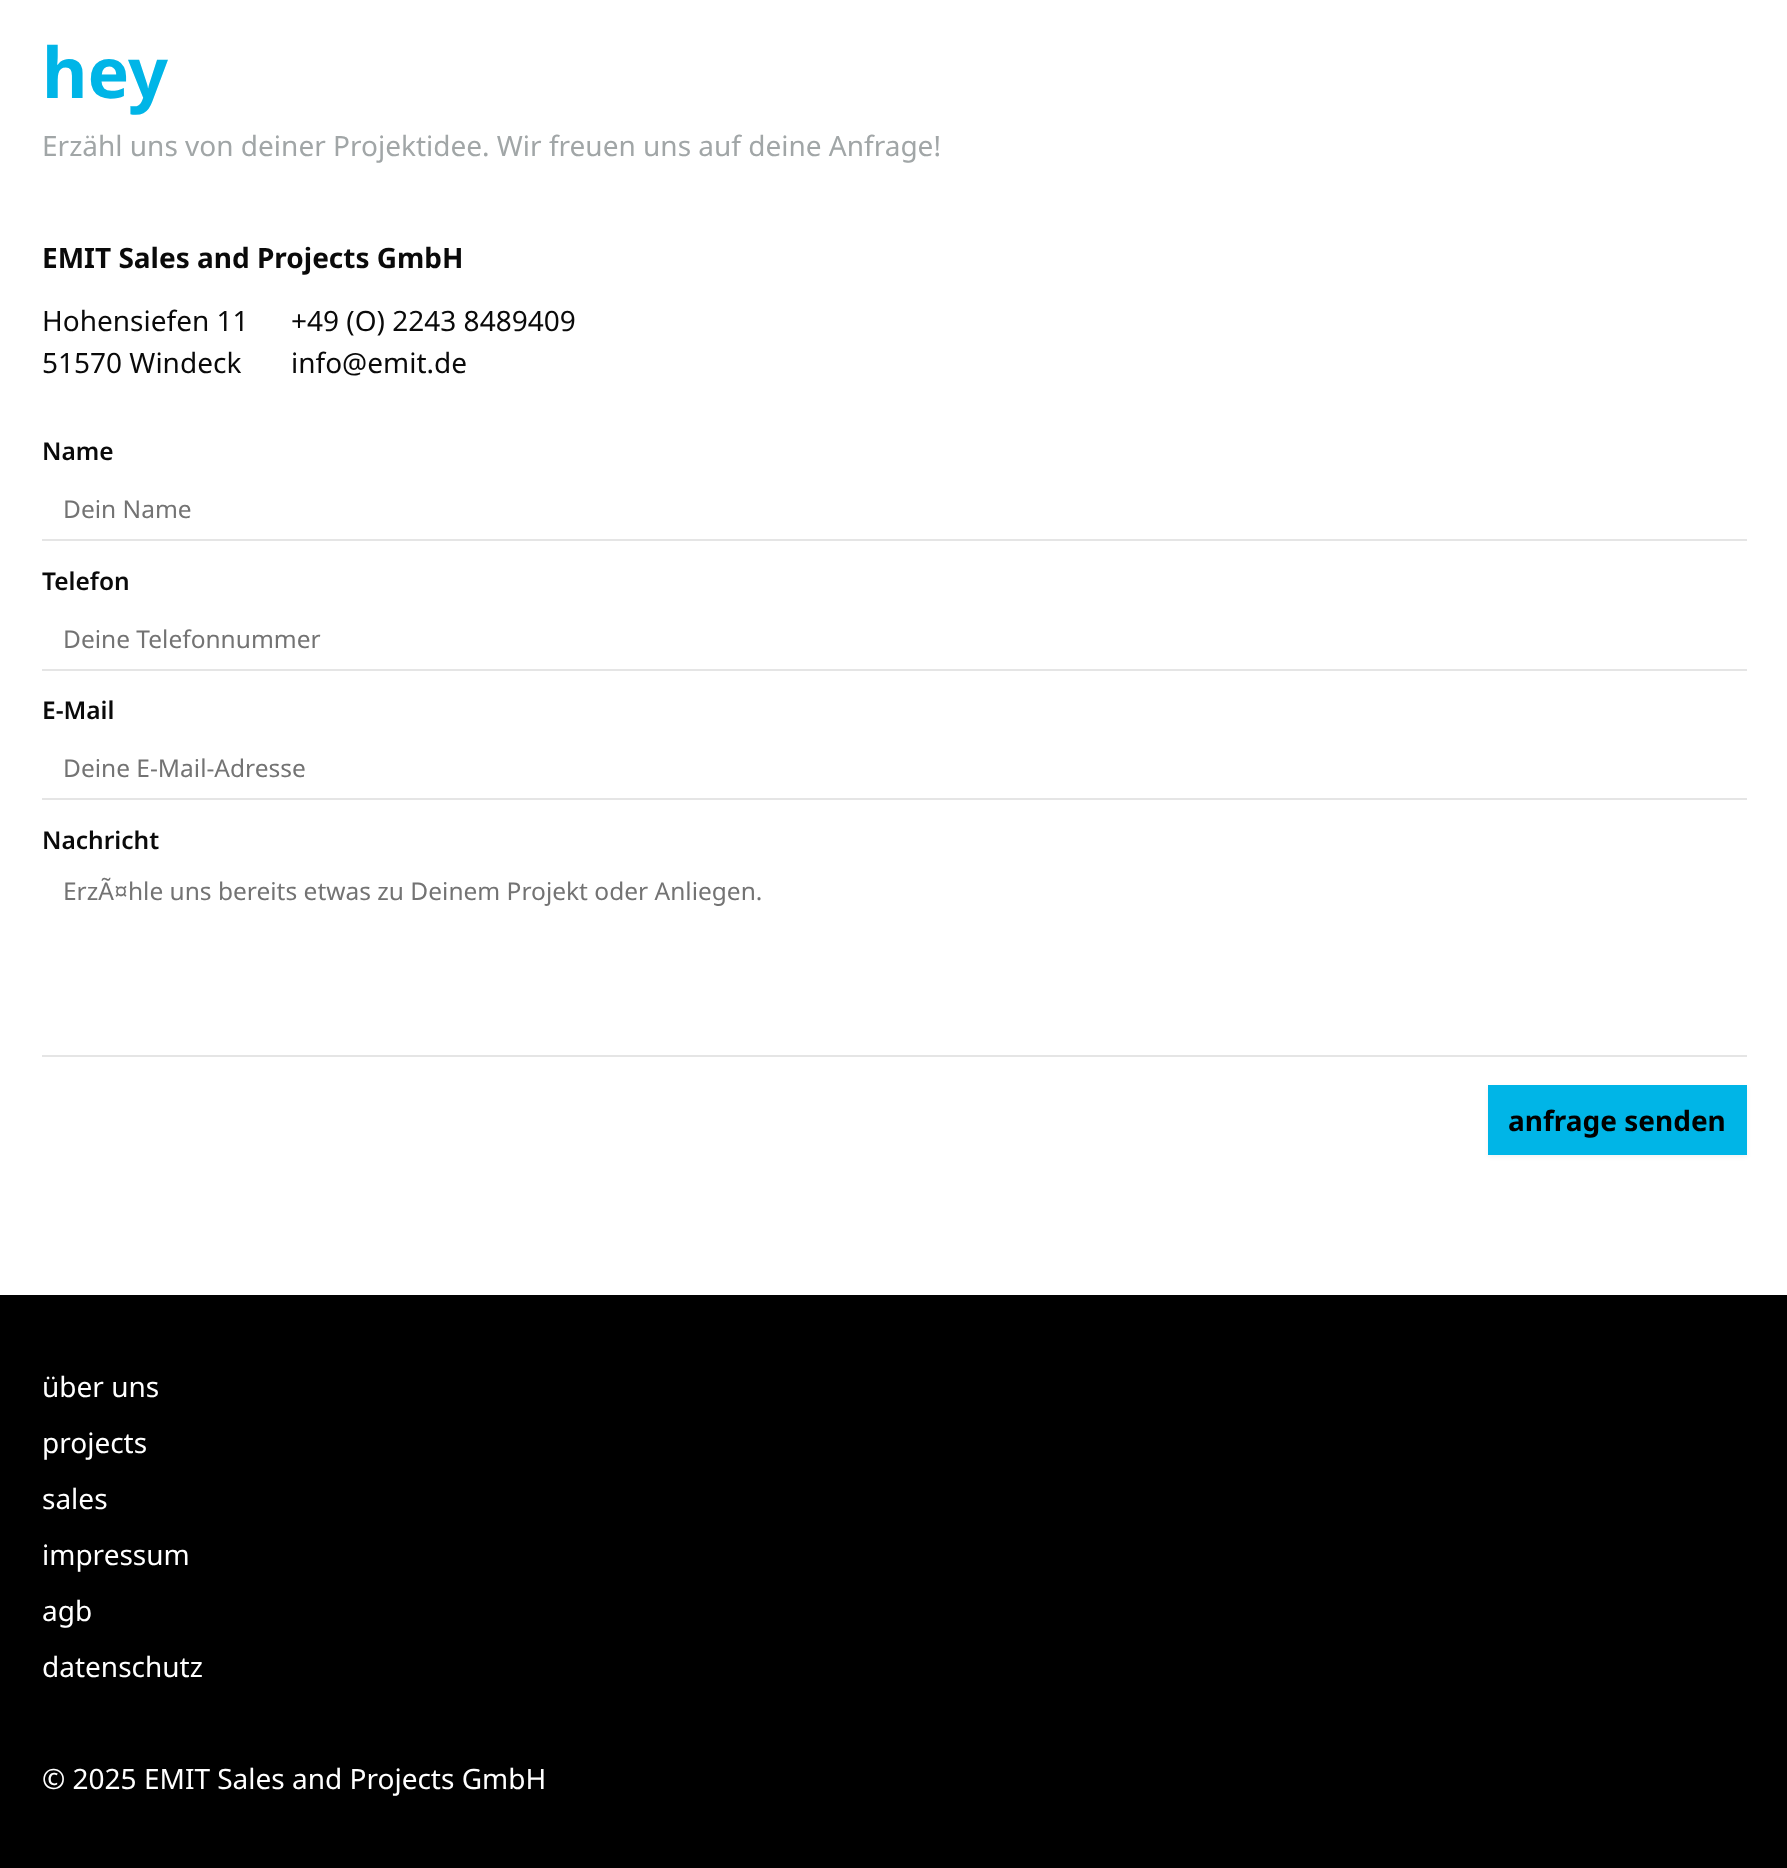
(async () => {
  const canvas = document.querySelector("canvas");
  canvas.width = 1787;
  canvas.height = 1868;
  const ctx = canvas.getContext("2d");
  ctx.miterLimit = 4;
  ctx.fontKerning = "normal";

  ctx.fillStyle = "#ffffff";
  ctx.fillRect(0, 0, 1787, 1868);
  for (const [x, y, w, h, color] of [
    [42, 539, 1705, 2, "#e5e5e5"],
    [42, 669, 1705, 2, "#e5e5e5"],
    [42, 798, 1705, 2, "#e5e5e5"],
    [42, 1055, 1705, 2, "#e5e5e5"],
  ]) {
    ctx.fillStyle = color;
    ctx.fillRect(x, y, w, h);
  }
  ctx.fillStyle = "rgba(0, 0, 0, 0.05)";
  ctx.filter = "blur(2px)";
  ctx.beginPath();
  ctx.rect(1488, 1087, 259, 70);
  ctx.fill();
  ctx.filter = "none";
  ctx.fillStyle = "#00b5e7";
  ctx.fillRect(1488, 1085, 259, 70);
  ctx.fillStyle = "#000000";
  ctx.fillRect(0, 1295, 1787, 573);
  ctx.font = "bold 70px Noto Sans";
  ctx.fillStyle = "#00b5e7";
  ctx.fillText("hey", 42, 98);
  ctx.font = "28px Noto Sans";
  ctx.fillStyle = "#a1a6a7";
  ctx.fillText("Erzähl uns von deiner Projektidee. Wir freuen uns auf deine Anfrage!", 42, 156);
  ctx.font = "bold 28px Noto Sans";
  ctx.fillStyle = "#0a0a0a";
  ctx.fillText("EMIT Sales and Projects GmbH", 42, 268);
  ctx.font = "28px Noto Sans";
  for (const [text, x, y] of [
    ["Hohensiefen 11", 42, 331],
    ["51570 Windeck", 42, 373],
    ["+49 (O) 2243 8489409", 291, 331],
    ["info@emit.de", 291, 373],
  ]) {
    ctx.fillText(text, x, y);
  }
  ctx.font = "600 24.5px Noto Sans";
  ctx.fillText("Name", 42, 460);
  ctx.font = "24.5px Noto Sans";
  ctx.fillStyle = "#737373";
  ctx.fillText("Dein Name", 63, 518);
  ctx.font = "600 24.5px Noto Sans";
  ctx.fillStyle = "#0a0a0a";
  ctx.fillText("Telefon", 42, 590);
  ctx.font = "24.5px Noto Sans";
  ctx.fillStyle = "#737373";
  ctx.fillText("Deine Telefonnummer", 63, 648);
  ctx.font = "600 24.5px Noto Sans";
  ctx.fillStyle = "#0a0a0a";
  ctx.fillText("E-Mail", 42, 719);
  ctx.font = "24.5px Noto Sans";
  ctx.fillStyle = "#737373";
  ctx.fillText("Deine E-Mail-Adresse", 63, 777);
  ctx.font = "600 24.5px Noto Sans";
  ctx.fillStyle = "#0a0a0a";
  ctx.fillText("Nachricht", 42, 849);
  ctx.font = "24.5px Noto Sans";
  ctx.fillStyle = "#737373";
  ctx.fillText("ErzÃ¤hle uns bereits etwas zu Deinem Projekt oder Anliegen.", 63, 900);
  ctx.font = "bold 28px Noto Sans";
  ctx.fillStyle = "#000000";
  ctx.fillText("anfrage senden", 1508, 1131);
  ctx.font = "28px Noto Sans";
  ctx.fillStyle = "#ffffff";
  for (const [text, x, y] of [
    ["über uns", 42, 1397],
    ["projects", 42, 1453],
    ["sales", 42, 1509],
    ["impressum", 42, 1565],
    ["agb", 42, 1621],
    ["datenschutz", 42, 1677],
    ["© 2025 EMIT Sales and Projects GmbH", 42, 1789],
  ]) {
    ctx.fillText(text, x, y);
  }
})();
